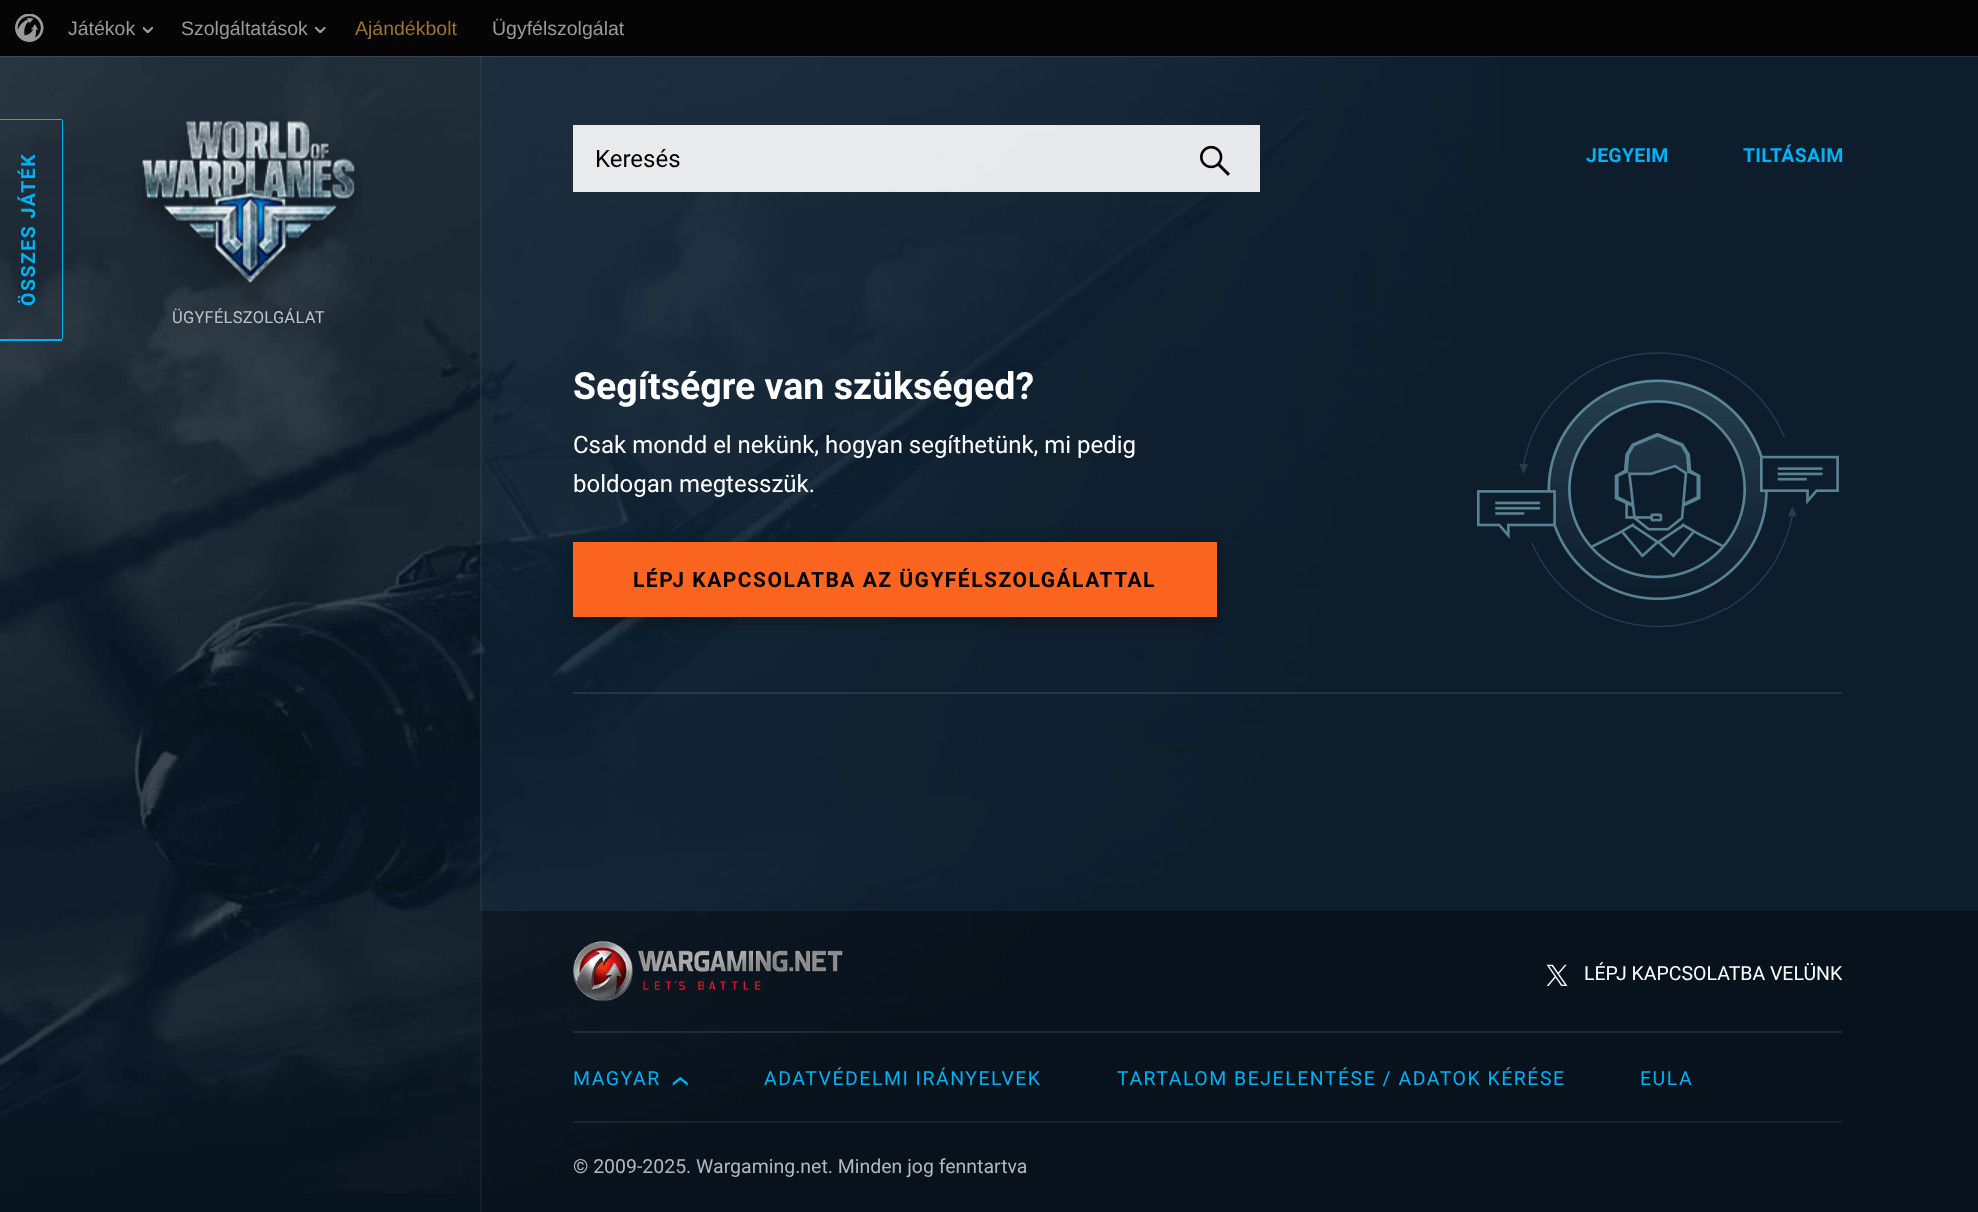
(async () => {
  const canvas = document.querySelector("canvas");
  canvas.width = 1978;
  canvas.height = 1212;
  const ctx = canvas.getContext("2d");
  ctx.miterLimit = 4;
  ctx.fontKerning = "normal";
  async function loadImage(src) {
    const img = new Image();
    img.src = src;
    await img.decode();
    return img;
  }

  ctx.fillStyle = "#0b1925";
  ctx.fillRect(0, 0, 1978, 1212);
  ctx.drawImage(await loadImage("img/1.png"), 0, 56, 1499, 1137);
  for (const [x, y, w, h, color] of [
    [0, 56, 480, 1156, "rgba(0, 0, 0, 0.2)"],
    [480, 56, 1498, 1156, "rgba(15, 34, 51, 0.5)"],
    [480, 911, 1498, 301, "rgba(0, 0, 0, 0.35)"],
    [480, 56, 2, 1156, "rgba(255, 255, 255, 0.05)"],
  ]) {
    ctx.fillStyle = color;
    ctx.fillRect(x, y, w, h);
  }
  ctx.strokeStyle = "rgba(255, 255, 255, 0.1)";
  ctx.lineWidth = 2;
  ctx.strokeRect(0, 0, 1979, 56);
  ctx.fillStyle = "#050505";
  ctx.fillRect(0, 0, 1978, 56);
  ctx.drawImage(await loadImage("img/2.png"), 15, 14, 29, 28);
  ctx.drawImage(await loadImage("img/3.png"), 143, 27, 10, 6);
  ctx.drawImage(await loadImage("img/4.png"), 315, 27, 11, 6);
  for (const [x, y, w, h, color] of [
    [0, 119, 62, 1, "#00b1f3"],
    [62, 120, 1, 219, "#00b1f3"],
    [0, 339, 62, 2, "#00b1f3"],
  ]) {
    ctx.fillStyle = color;
    ctx.fillRect(x, y, w, h);
  }
  ctx.drawImage(await loadImage("img/5.png"), 135, 120, 227, 182);
  ctx.fillStyle = "rgba(255, 255, 255, 0.9)";
  ctx.fillRect(573, 125, 687, 67);
  ctx.drawImage(await loadImage("img/6.png"), 1200, 145, 30, 31);
  ctx.fillStyle = "rgba(255, 255, 255, 0.1)";
  ctx.fillRect(573, 692, 1269, 2);
  ctx.fillStyle = "rgba(0, 0, 0, 0.2)";
  ctx.filter = "blur(8px)";
  ctx.beginPath();
  ctx.rect(572, 545, 646, 78);
  ctx.fill();
  ctx.filter = "none";
  ctx.fillStyle = "#fc6520";
  ctx.fillRect(573, 542, 644, 75);
  ctx.drawImage(await loadImage("img/7.png"), 1476, 352, 363, 276);
  ctx.drawImage(await loadImage("img/8.png"), 573, 941, 270, 60);
  ctx.drawImage(await loadImage("img/9.png"), 1546, 964, 22, 22);
  ctx.fillStyle = "rgba(255, 255, 255, 0.1)";
  ctx.fillRect(573, 1031, 1269, 2);
  ctx.drawImage(await loadImage("img/10.png"), 672, 1076, 16, 10);
  ctx.fillStyle = "#1a242c";
  ctx.fillRect(573, 1121, 1269, 2);
  ctx.font = "19.5px Liberation Sans";
  ctx.fillStyle = "#9b9b9b";
  ctx.fillText("Játékok", 68, 35);
  ctx.fillText("Szolgáltatások", 181, 35);
  ctx.fillStyle = "#9b7430";
  ctx.fillText("Ajándékbolt", 355, 35);
  ctx.fillStyle = "#9b9b9b";
  ctx.fillText("Ügyfélszolgálat", 492, 35);
  ctx.letterSpacing = "1.5px";
  ctx.font = "bold 19.5px Roboto";
  ctx.fillStyle = "#00b1f3";
  ctx.save();
  ctx.translate(35, 306);
  ctx.rotate(-90 * Math.PI / 180);
  ctx.fillText("ÖSSZES JÁTÉK", 0, 0);
  ctx.restore();
  ctx.letterSpacing = "0.25px";
  ctx.font = "16.5px Roboto";
  ctx.fillStyle = "#bec2c5";
  ctx.fillText("ÜGYFÉLSZOLGÁLAT", 172, 323);
  ctx.letterSpacing = "0px";
  ctx.font = "24px Roboto";
  ctx.fillStyle = "#000000";
  ctx.fillText("Keresés", 595, 167);
  ctx.letterSpacing = "0.25px";
  ctx.font = "bold 19.5px Roboto";
  ctx.fillStyle = "#00b1f3";
  ctx.fillText("JEGYEIM", 1586, 162);
  ctx.fillText("TILTÁSAIM", 1743, 162);
  ctx.letterSpacing = "0px";
  ctx.font = "bold 37.5px Roboto";
  ctx.fillStyle = "#ffffff";
  ctx.fillText("Segítségre van szükséged?", 573, 399);
  ctx.font = "24px Roboto";
  ctx.fillText("Csak mondd el nekünk, hogyan segíthetünk, mi pedig", 573, 453);
  ctx.fillText("boldogan megtesszük.", 573, 492);
  ctx.letterSpacing = "1.5px";
  ctx.font = "bold 21px Roboto";
  ctx.fillStyle = "#000000";
  ctx.fillText("LÉPJ KAPCSOLATBA AZ ÜGYFÉLSZOLGÁLATTAL", 633, 587);
  ctx.letterSpacing = "0px";
  ctx.font = "19.5px Roboto";
  ctx.fillStyle = "#ffffff";
  ctx.fillText("LÉPJ KAPCSOLATBA VELÜNK", 1584, 980);
  ctx.letterSpacing = "1.5px";
  ctx.fillStyle = "#00b1f3";
  for (const [text, x, y] of [
    ["MAGYAR", 573, 1085],
    ["ADATVÉDELMI IRÁNYELVEK", 764, 1085],
    ["TARTALOM BEJELENTÉSE / ADATOK KÉRÉSE", 1117, 1085],
    ["EULA", 1640, 1085],
  ]) {
    ctx.fillText(text, x, y);
  }
  ctx.letterSpacing = "0px";
  ctx.fillStyle = "#b5b8bb";
  ctx.fillText("© 2009-2025. Wargaming.net. Minden jog fenntartva", 573, 1173);
})();
